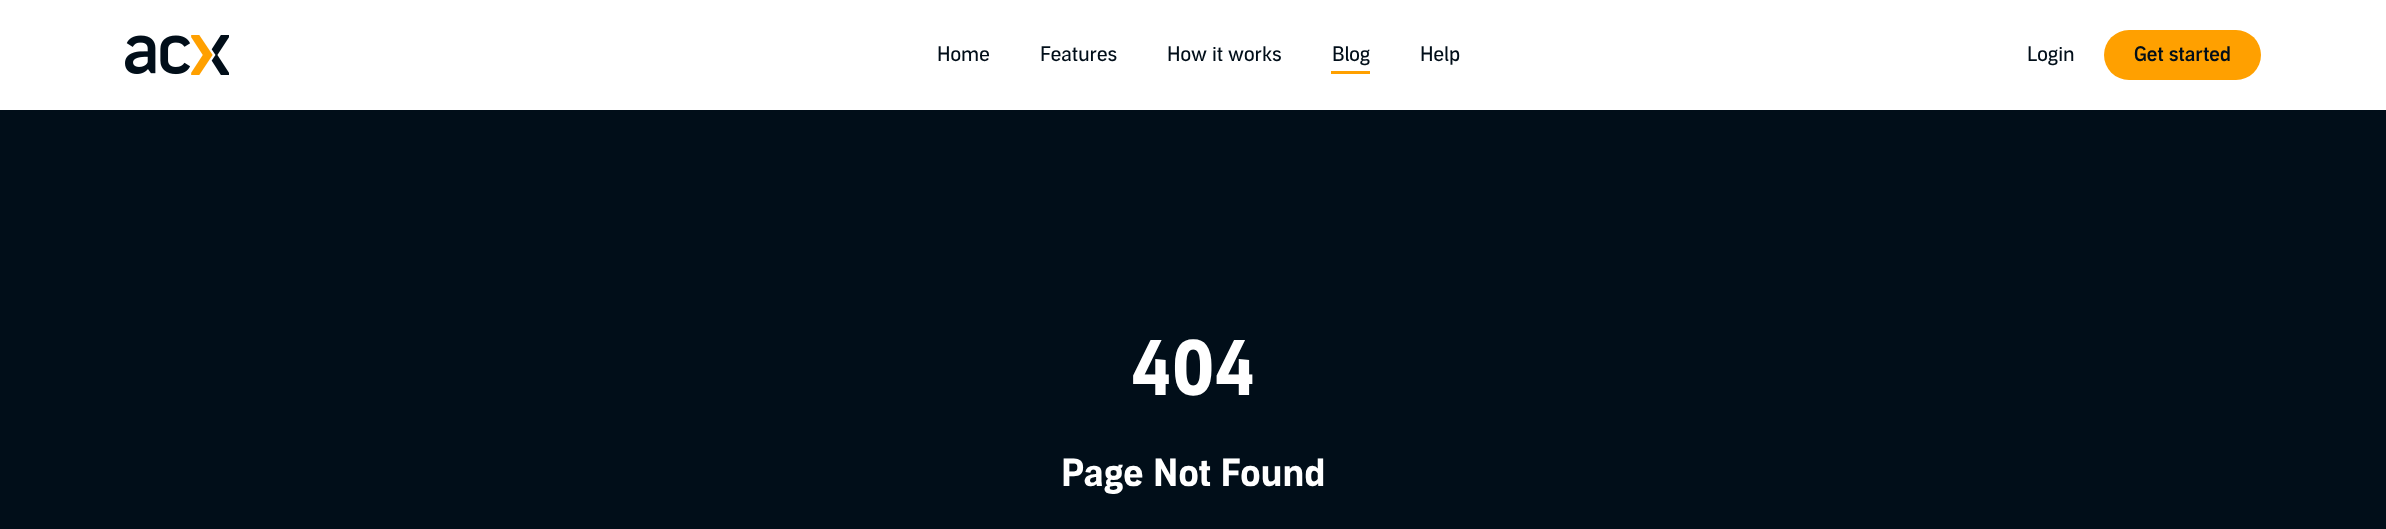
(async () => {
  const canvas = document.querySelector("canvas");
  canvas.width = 2386;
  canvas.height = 529;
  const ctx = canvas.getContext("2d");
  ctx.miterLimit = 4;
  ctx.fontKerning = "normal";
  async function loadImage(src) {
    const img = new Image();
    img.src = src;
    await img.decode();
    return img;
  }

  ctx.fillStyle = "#010e19";
  ctx.fillRect(0, 0, 2386, 529);
  ctx.fillStyle = "#ffffff";
  ctx.fillRect(0, 0, 2386, 110);
  ctx.drawImage(await loadImage("img/1.png"), 125, 35, 104, 40);
  ctx.fillStyle = "#ffa000";
  ctx.fillRect(1331, 71, 39, 3);
  ctx.beginPath();
  ctx.roundRect(2104, 30, 157, 50, 25);
  ctx.fill();
  ctx.font = "20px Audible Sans";
  ctx.fillStyle = "#010e19";
  for (const [text, x, y] of [
    ["Home", 937, 61],
    ["Features", 1040, 61],
    ["How it works", 1167, 61],
    ["Blog", 1332, 61],
    ["Help", 1420, 61],
    ["Login", 2027, 61],
  ]) {
    ctx.fillText(text, x, y);
  }
  ctx.font = "500 20px Audible Sans";
  ctx.fillText("Get started", 2134, 61);
  ctx.font = "bold 75px Audible Sans";
  ctx.fillStyle = "#ffffff";
  ctx.fillText("404", 1131, 395);
  ctx.font = "bold 37.5px Audible Sans";
  ctx.fillText("Page Not Found", 1061, 486);
})();
